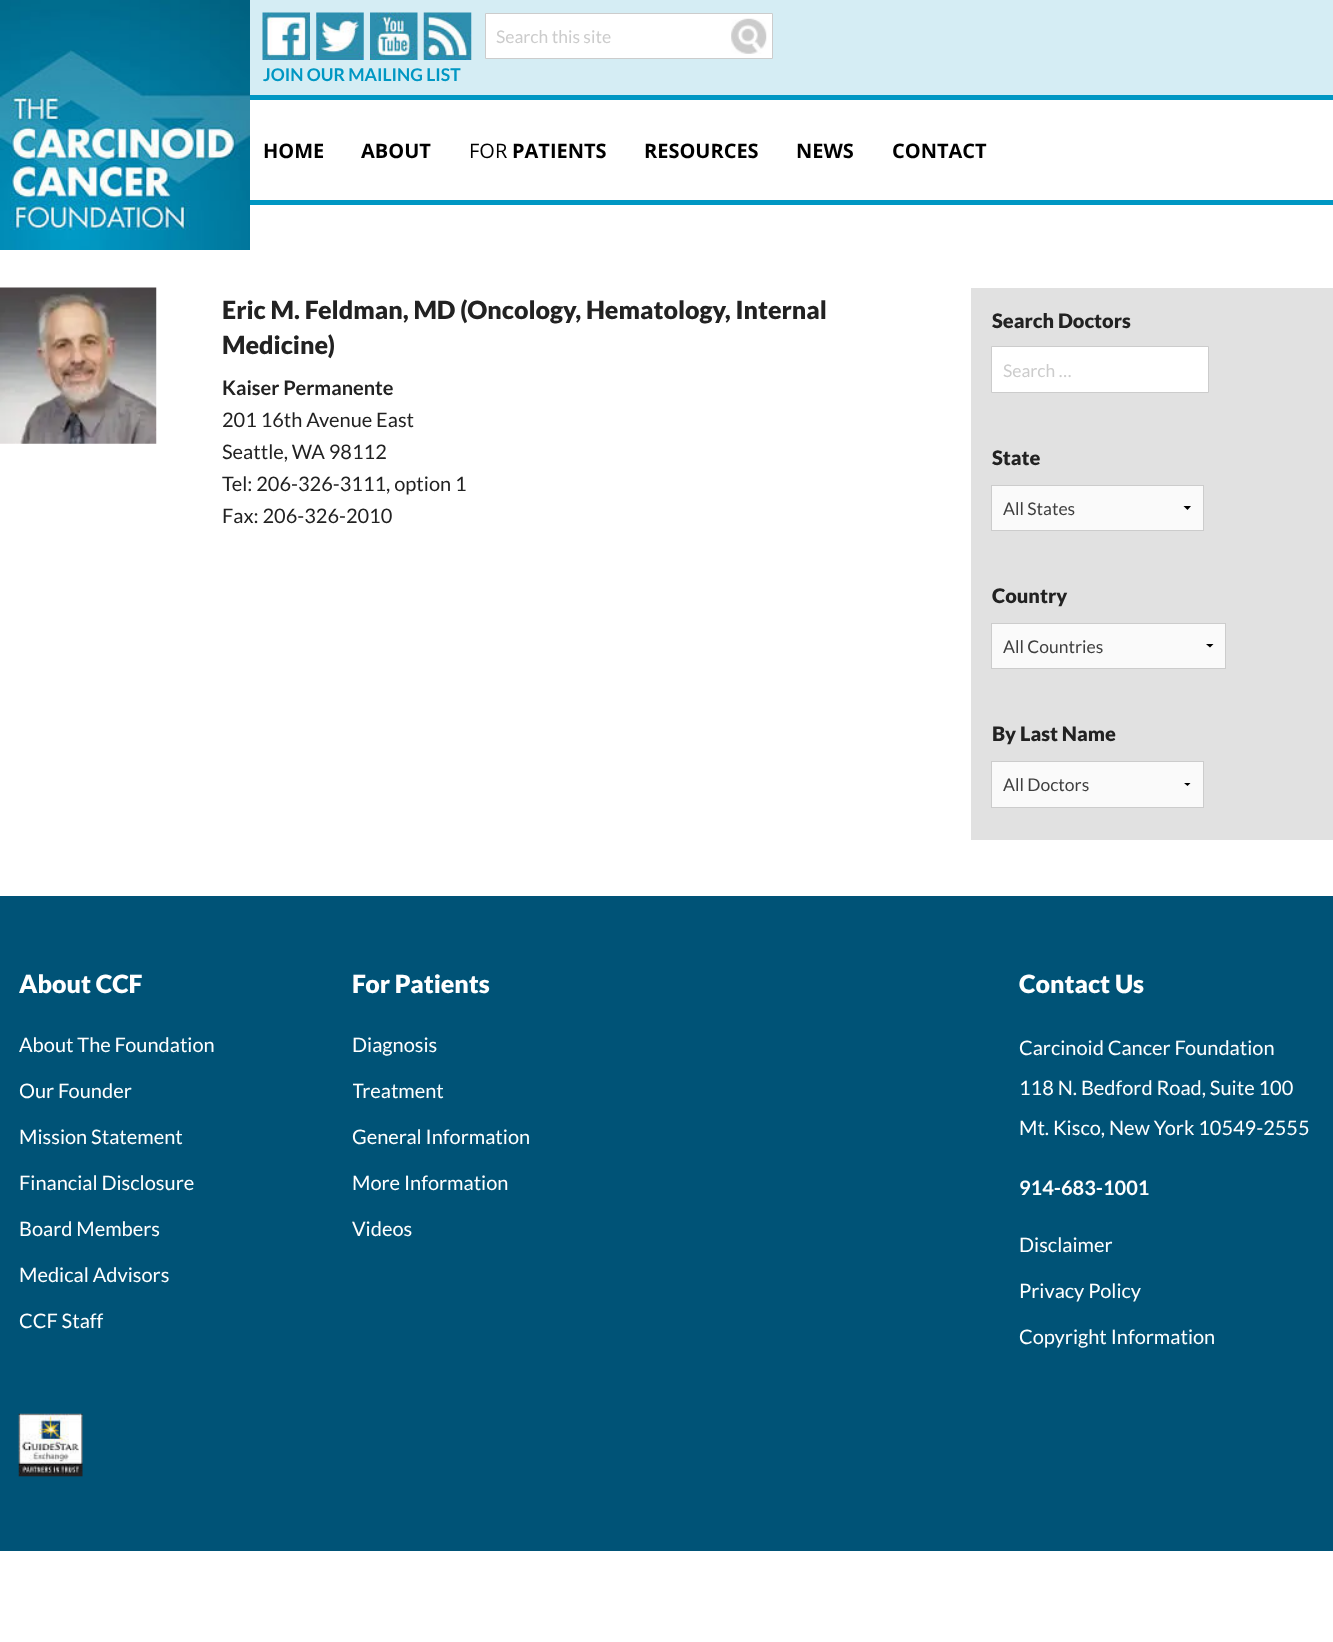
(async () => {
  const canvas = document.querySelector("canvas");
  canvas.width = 1333;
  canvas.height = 1642;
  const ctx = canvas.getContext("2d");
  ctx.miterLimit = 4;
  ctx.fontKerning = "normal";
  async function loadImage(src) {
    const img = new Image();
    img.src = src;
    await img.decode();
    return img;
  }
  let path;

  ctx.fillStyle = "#ffffff";
  ctx.fillRect(0, 0, 1333, 1642);
  ctx.fillStyle = "#d5edf4";
  ctx.fillRect(250, 0, 1083, 95);
  ctx.fillStyle = "#0097c3";
  ctx.fillRect(250, 95, 1083, 5);
  ctx.drawImage(await loadImage("img/1.png"), 0, 0, 250, 250);
  ctx.fillStyle = "#ffffff";
  ctx.beginPath();
  ctx.rect(485.5, 13.5, 287, 45);
  ctx.fill();
  ctx.strokeStyle = "#cccccc";
  ctx.stroke();
  ctx.drawImage(await loadImage("img/2.png"), 731, 18, 36, 36);
  ctx.drawImage(await loadImage("img/3.png"), 262, 12, 48, 48);
  ctx.drawImage(await loadImage("img/4.png"), 316, 12, 48, 48);
  ctx.drawImage(await loadImage("img/5.png"), 370, 12, 48, 48);
  ctx.drawImage(await loadImage("img/6.png"), 423, 12, 49, 48);
  ctx.fillStyle = "#0097c3";
  ctx.fillRect(250, 200, 1083, 5);
  ctx.drawImage(await loadImage("img/7.png"), 0, 287, 157, 157);
  ctx.fillStyle = "#e1e1e1";
  ctx.fillRect(971, 288, 362, 552);
  ctx.fillStyle = "#ffffff";
  ctx.beginPath();
  ctx.rect(991.5, 346.5, 217, 46);
  ctx.fill();
  ctx.stroke();
  ctx.fillStyle = "#fafafa";
  ctx.fillRect(992, 486, 211, 44);
  ctx.fillStyle = "#000000";
  path = new Path2D("M1191 506L1187.5 510L1183.5 506Z");
  ctx.fill(path);
  ctx.strokeRect(991.5, 485.5, 212, 45);
  ctx.fillStyle = "#fafafa";
  ctx.fillRect(992, 624, 233, 44);
  ctx.fillStyle = "#000000";
  path = new Path2D("M1213.5 644L1210 647.5L1206 644Z");
  ctx.fill(path);
  ctx.strokeRect(991.5, 623.5, 234, 45);
  ctx.fillStyle = "#fafafa";
  ctx.fillRect(992, 762, 211, 45);
  ctx.save();
  ctx.beginPath();
  ctx.rect(1173, 783, 30, 4);
  ctx.clip();
  ctx.fillStyle = "#000000";
  path = new Path2D("M1191 782.5L1187.5 786L1183.5 782.5Z");
  ctx.fill(path);
  ctx.restore();
  ctx.strokeRect(991.5, 761.5, 212, 46);
  ctx.fillStyle = "#005377";
  ctx.fillRect(0, 896, 1333, 655);
  ctx.drawImage(await loadImage("img/8.png"), 18, 1413, 65, 64);
  ctx.font = "17.5px Lato";
  ctx.fillStyle = "#cccccc";
  ctx.fillText("Search this site", 496, 43);
  ctx.font = "bold 17.5px Lato";
  ctx.fillStyle = "#0097c3";
  ctx.fillText("JOIN OUR MAILING LIST", 263, 81);
  ctx.font = "bold 20px Open Sans";
  ctx.fillStyle = "#000000";
  ctx.fillText("HOME", 263, 158);
  ctx.fillText("ABOUT", 361, 158);
  ctx.font = "20px Open Sans";
  ctx.fillText("FOR", 469, 158);
  ctx.font = "bold 20px Open Sans";
  for (const [text, x, y] of [
    ["PATIENTS", 512, 158],
    ["RESOURCES", 644, 158],
    ["NEWS", 796, 158],
    ["CONTACT", 892, 158],
  ]) {
    ctx.fillText(text, x, y);
  }
  ctx.font = "900 25px Lato";
  ctx.fillStyle = "#222222";
  ctx.fillText("Eric M. Feldman, MD (Oncology, Hematology, Internal", 222, 319);
  ctx.fillText("Medicine)", 222, 354);
  ctx.font = "bold 20px Lato";
  ctx.fillText("Kaiser Permanente", 222, 395);
  ctx.font = "20px Lato";
  for (const [text, x, y] of [
    ["201 16th Avenue East", 222, 427],
    ["Seattle, WA 98112", 222, 459],
    ["Tel: 206-326-3111, option 1", 222, 491],
    ["Fax: 206-326-2010", 222, 523],
  ]) {
    ctx.fillText(text, x, y);
  }
  ctx.font = "900 20px Lato";
  ctx.fillText("Search Doctors", 992, 328);
  ctx.font = "17.5px Lato";
  ctx.fillStyle = "#cccccc";
  ctx.fillText("Search …", 1003, 377);
  ctx.font = "900 20px Lato";
  ctx.fillStyle = "#222222";
  ctx.fillText("State", 992, 465);
  ctx.font = "17.5px Lato";
  ctx.fillStyle = "#3f3f3f";
  ctx.fillText("All States", 1003, 515);
  ctx.font = "900 20px Lato";
  ctx.fillStyle = "#222222";
  ctx.fillText("Country", 992, 603);
  ctx.font = "17.5px Lato";
  ctx.fillStyle = "#3f3f3f";
  ctx.fillText("All Countries", 1003, 653);
  ctx.font = "900 20px Lato";
  ctx.fillStyle = "#222222";
  ctx.fillText("By Last Name", 992, 741);
  ctx.font = "17.5px Lato";
  ctx.fillStyle = "#3f3f3f";
  ctx.fillText("All Doctors", 1003, 791);
  ctx.font = "900 25px Lato";
  ctx.fillStyle = "#ffffff";
  ctx.fillText("About CCF", 19, 993);
  ctx.font = "20px Lato";
  for (const [text, x, y] of [
    ["About The Foundation", 19, 1052],
    ["Our Founder", 19, 1098],
    ["Mission Statement", 19, 1144],
    ["Financial Disclosure", 19, 1190],
    ["Board Members", 19, 1236],
    ["Medical Advisors", 19, 1282],
    ["CCF Staff", 19, 1328],
  ]) {
    ctx.fillText(text, x, y);
  }
  ctx.font = "900 25px Lato";
  ctx.fillText("For Patients", 352, 993);
  ctx.font = "20px Lato";
  ctx.fillText("Diagnosis", 352, 1052);
  ctx.save();
  ctx.beginPath();
  ctx.rect(353, 1028, 296, 230);
  ctx.clip();
  ctx.fillText("Treatment", 352, 1098);
  ctx.restore();
  for (const [text, x, y] of [
    ["General Information", 352, 1144],
    ["More Information", 352, 1190],
    ["Videos", 352, 1236],
  ]) {
    ctx.fillText(text, x, y);
  }
  ctx.font = "900 25px Lato";
  ctx.fillText("Contact Us", 1019, 993);
  ctx.font = "20px Lato";
  for (const [text, x, y] of [
    ["Carcinoid Cancer Foundation", 1019, 1055],
    ["118 N. Bedford Road, Suite 100", 1019, 1095],
    ["Mt. Kisco, New York 10549-2555", 1019, 1135],
  ]) {
    ctx.fillText(text, x, y);
  }
  ctx.font = "bold 20px Lato";
  ctx.fillText("914-683-1001", 1019, 1195);
  ctx.font = "20px Lato";
  for (const [text, x, y] of [
    ["Disclaimer", 1019, 1252],
    ["Privacy Policy", 1019, 1298],
    ["Copyright Information", 1019, 1344],
  ]) {
    ctx.fillText(text, x, y);
  }
})();
